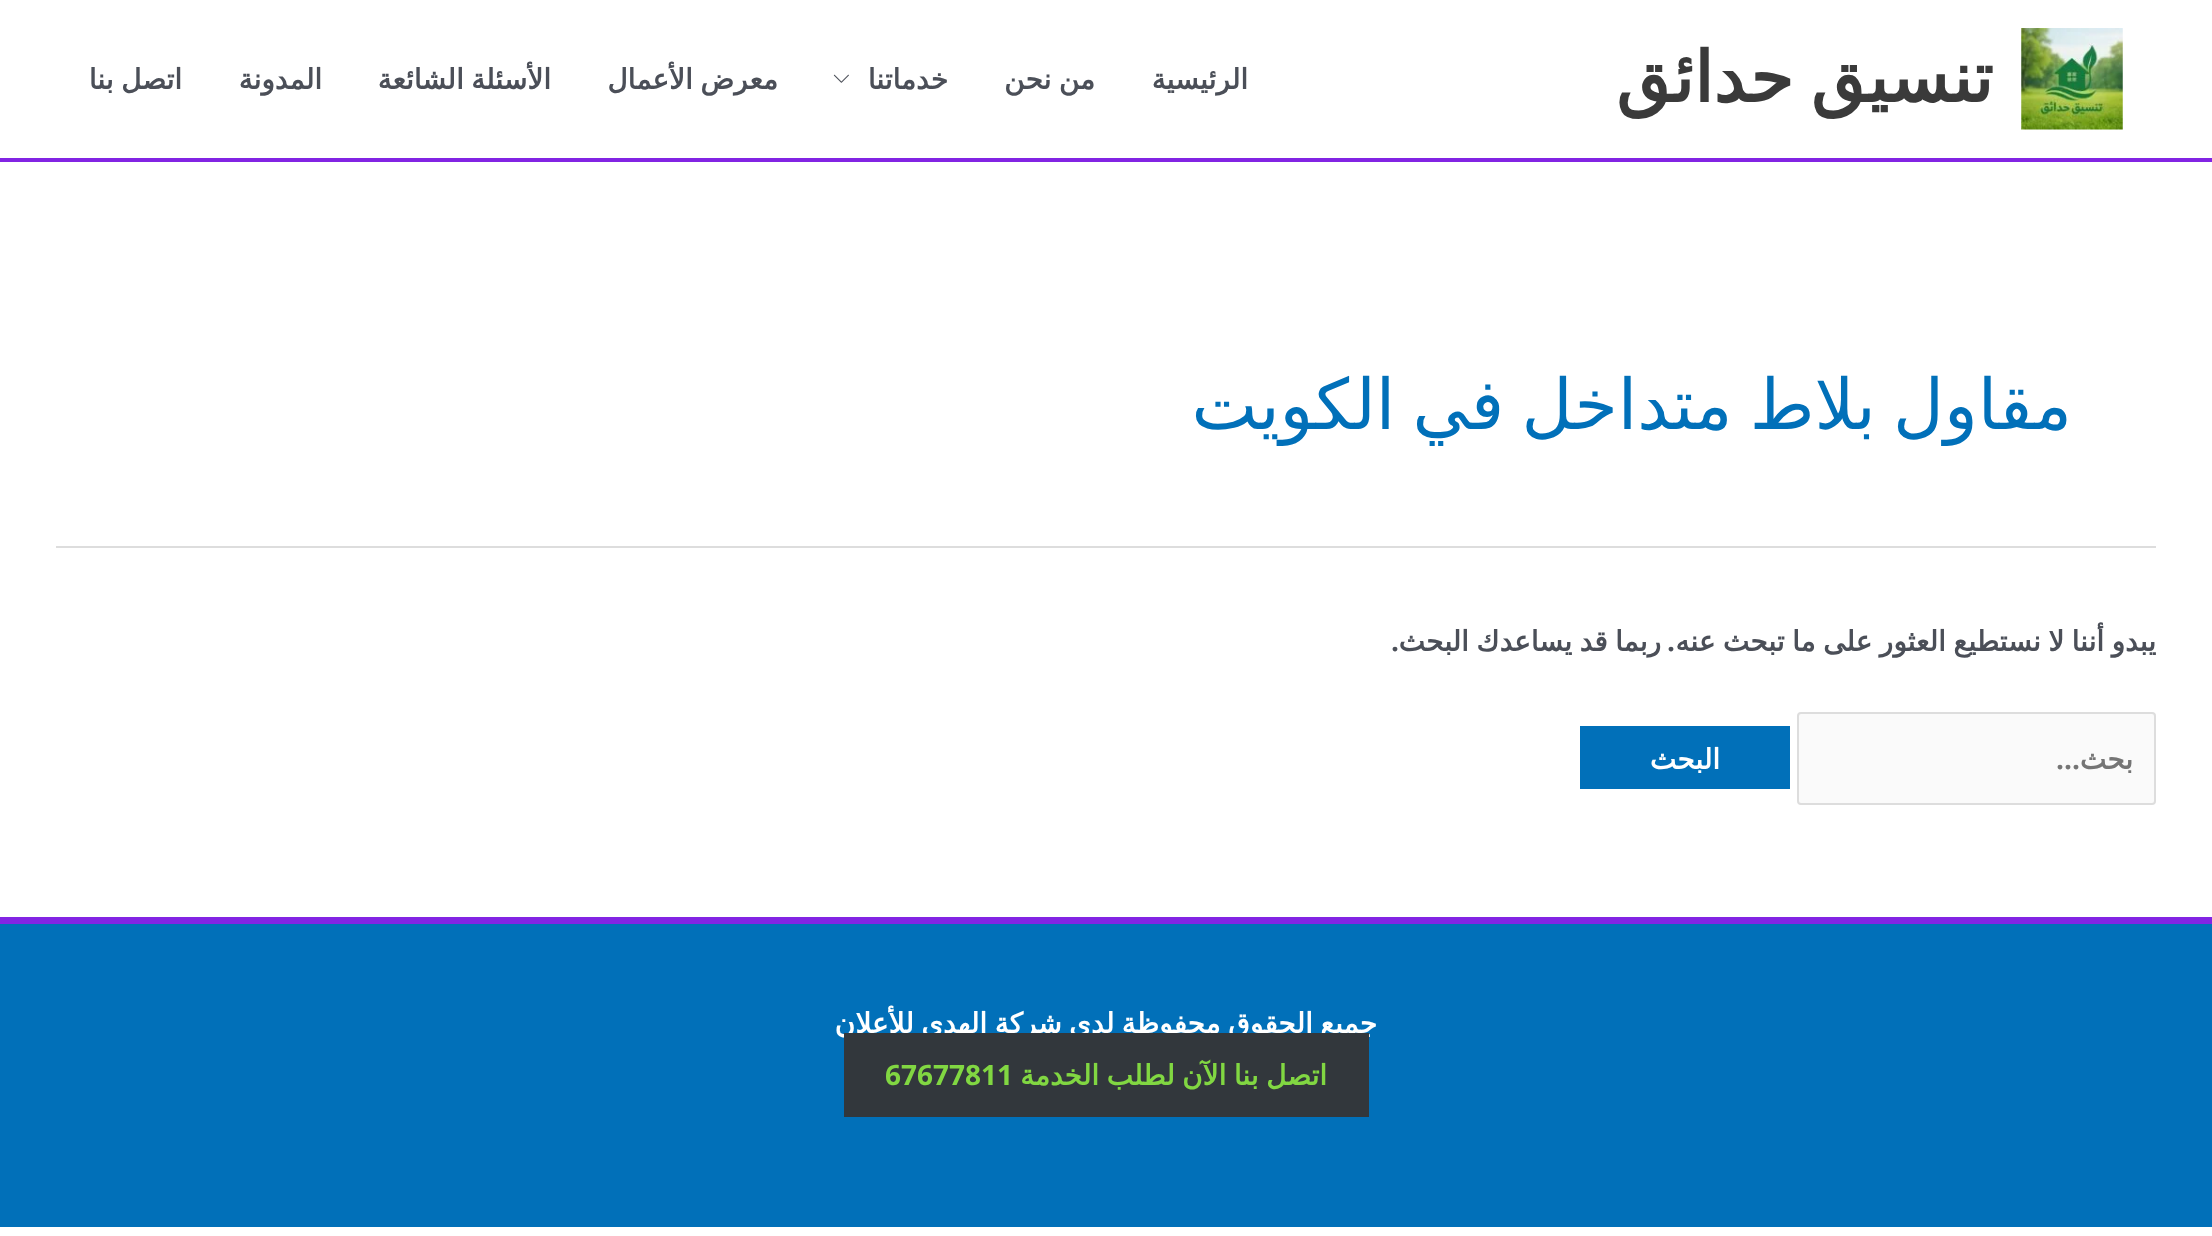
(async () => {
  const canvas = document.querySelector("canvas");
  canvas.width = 2212;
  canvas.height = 1236;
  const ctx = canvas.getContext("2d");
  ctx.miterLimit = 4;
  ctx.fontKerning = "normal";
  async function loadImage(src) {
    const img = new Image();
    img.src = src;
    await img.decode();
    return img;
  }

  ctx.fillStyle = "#ffffff";
  ctx.fillRect(0, 0, 2212, 1236);
  ctx.fillStyle = "#8224e3";
  ctx.fillRect(0, 158, 2212, 4);
  ctx.drawImage(await loadImage("img/1.png"), 2021, 28, 102, 102);
  ctx.drawImage(await loadImage("img/2.png"), 833, 74, 16, 9);
  ctx.fillStyle = "#dddddd";
  ctx.fillRect(56, 546, 2100, 2);
  ctx.fillStyle = "#fafafa";
  ctx.beginPath();
  ctx.roundRect(1798, 713, 357, 91, 3);
  ctx.fill();
  ctx.strokeStyle = "#dddddd";
  ctx.lineWidth = 2;
  ctx.stroke();
  for (const [x, y, w, h, color] of [
    [1580, 726, 210, 63, "#0170b9"],
    [0, 917, 2212, 7, "#8224e3"],
    [0, 924, 2212, 303, "#0170b9"],
  ]) {
    ctx.fillStyle = color;
    ctx.fillRect(x, y, w, h);
  }
  ctx.wordSpacing = "-5px";
  ctx.direction = "rtl";
  ctx.font = "bold 70px DejaVu Sans";
  ctx.fillStyle = "#3a3a3a";
  ctx.fillText("تنسيق حدائق", 1993, 102);
  ctx.wordSpacing = "0px";
  ctx.font = "bold 28px DejaVu Sans";
  ctx.fillStyle = "#4b4f58";
  ctx.fillText("الرئيسية", 1248, 89);
  ctx.wordSpacing = "-1.5px";
  ctx.fillText("من نحن", 1095, 89);
  ctx.wordSpacing = "0px";
  ctx.fillText("خدماتنا", 948, 89);
  ctx.wordSpacing = "-1.5px";
  ctx.fillText("معرض الأعمال", 778, 89);
  ctx.fillText("الأسئلة الشائعة", 551, 89);
  ctx.wordSpacing = "0px";
  ctx.fillText("المدونة", 322, 89);
  ctx.wordSpacing = "-1.5px";
  ctx.fillText("اتصل بنا", 182, 89);
  ctx.wordSpacing = "-5px";
  ctx.font = "70px DejaVu Sans";
  ctx.fillStyle = "#0170b9";
  ctx.fillText("مقاول بلاط متداخل في الكويت", 2072, 429);
  ctx.wordSpacing = "-1.5px";
  ctx.font = "bold 28px DejaVu Sans";
  ctx.fillStyle = "#4b4f58";
  ctx.fillText("يبدو أننا لا نستطيع العثور على ما تبحث عنه", 2156, 651);
  ctx.wordSpacing = "0px";
  ctx.font = "bold 28px Open Sans";
  ctx.fillText(".", 1675, 651);
  ctx.wordSpacing = "-1.5px";
  ctx.font = "bold 28px DejaVu Sans";
  ctx.fillText("ربما قد يساعدك البحث", 1661, 651);
  ctx.wordSpacing = "0px";
  ctx.font = "bold 28px Open Sans";
  ctx.fillText(".", 1399, 651);
  ctx.font = "bold 28px DejaVu Sans";
  ctx.fillStyle = "#757575";
  ctx.fillText("بحث", 2133, 769);
  ctx.font = "bold 28px Open Sans";
  ctx.fillText("...", 2080, 769);
  ctx.font = "bold 28px DejaVu Sans";
  ctx.fillStyle = "#ffffff";
  ctx.fillText("البحث", 1720, 769);
  ctx.wordSpacing = "-1.5px";
  ctx.fillText("جميع الحقوق محفوظة لدي شركة الهدي للأعلان", 1377, 1033);
  ctx.fillStyle = "#32373c";
  ctx.fillRect(844, 1033, 525, 84);
  ctx.fillStyle = "#81d742";
  ctx.fillText("اتصل بنا الآن لطلب الخدمة", 1327, 1085);
  ctx.wordSpacing = "0px";
  ctx.direction = "ltr";
  ctx.font = "bold 28px Open Sans";
  ctx.fillText("67677811", 885, 1085);
})();
